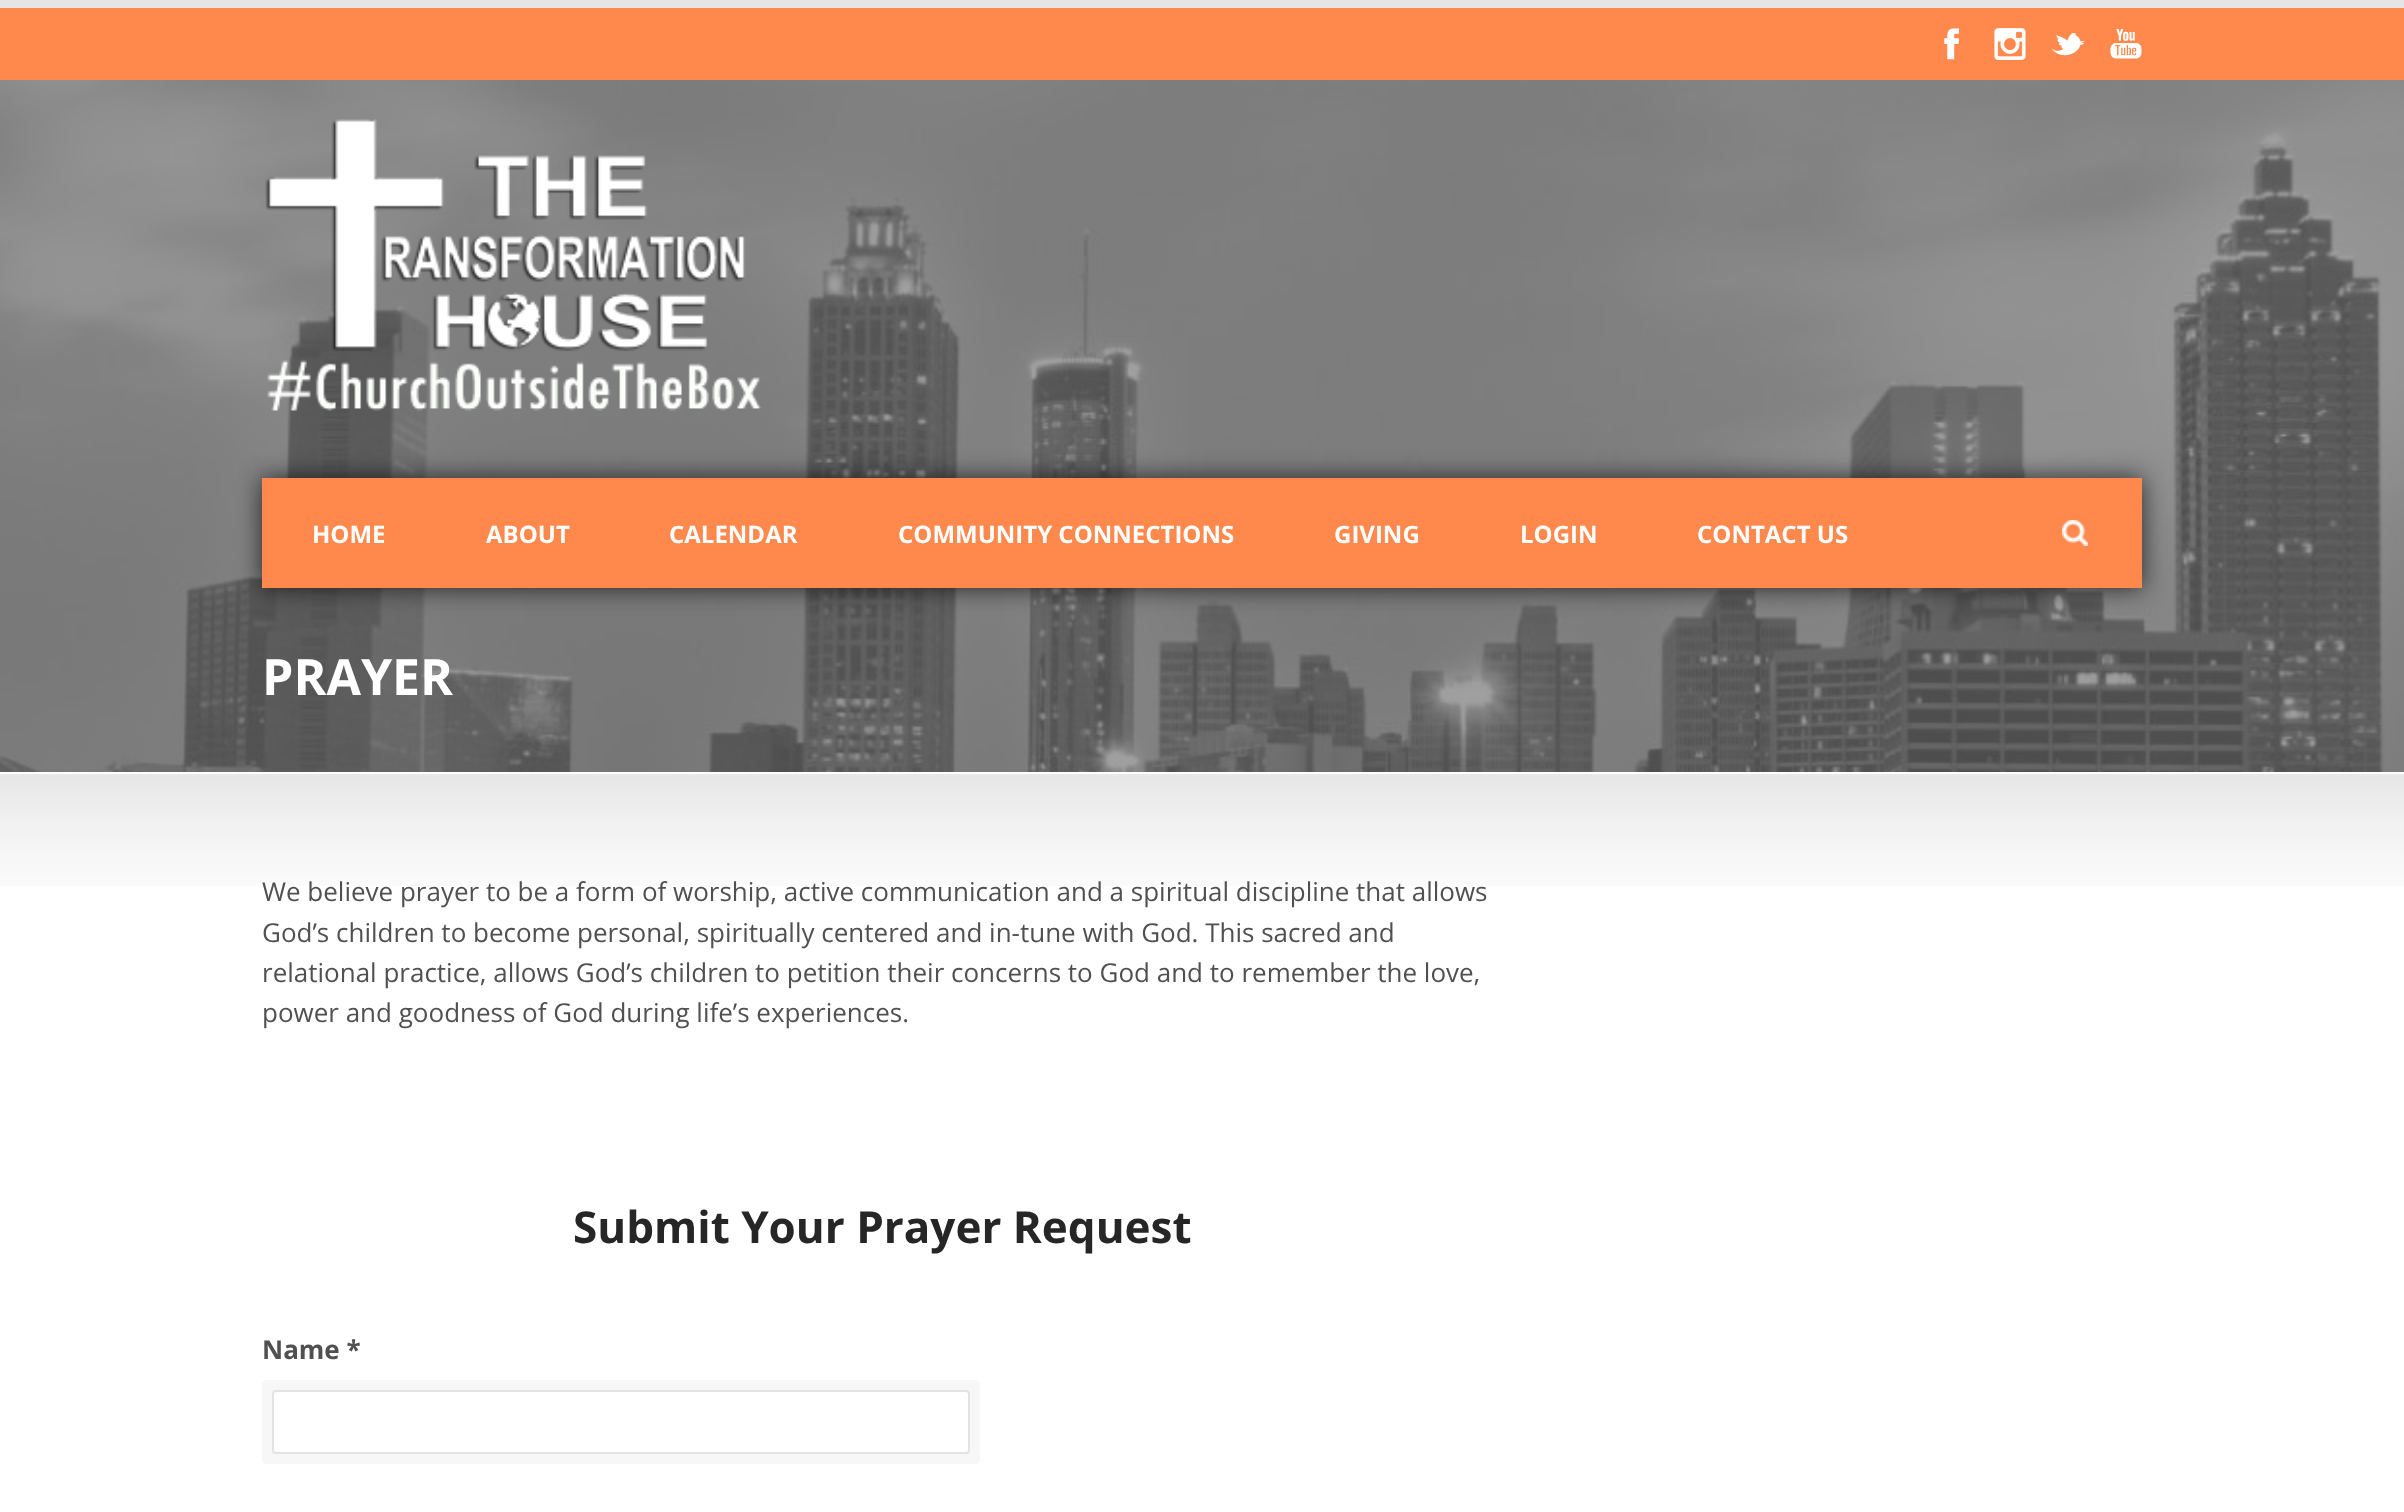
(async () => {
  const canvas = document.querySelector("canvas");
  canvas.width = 2404;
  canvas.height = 1512;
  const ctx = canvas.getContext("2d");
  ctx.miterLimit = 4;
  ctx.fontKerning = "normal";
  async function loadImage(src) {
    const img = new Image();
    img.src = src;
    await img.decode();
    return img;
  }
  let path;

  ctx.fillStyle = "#ffffff";
  ctx.fillRect(0, 0, 2404, 1512);
  ctx.fillStyle = "#ff884d";
  ctx.fillRect(0, 8, 2404, 72);
  ctx.fillStyle = "#e5e5e5";
  ctx.fillRect(0, 0, 2404, 8);
  ctx.drawImage(await loadImage("img/1.png"), 1944, 28, 15, 32);
  ctx.drawImage(await loadImage("img/2.png"), 1994, 28, 32, 32);
  ctx.drawImage(await loadImage("img/3.png"), 2052, 33, 32, 23);
  ctx.drawImage(await loadImage("img/4.png"), 2110, 29, 32, 30);
  ctx.drawImage(await loadImage("img/5.png"), 0, 80, 2404, 692);
  ctx.drawImage(await loadImage("img/6.png"), 265, 119, 497, 292);
  ctx.fillStyle = "rgba(0, 0, 0, 0.7)";
  ctx.filter = "blur(12px)";
  ctx.beginPath();
  ctx.rect(262, 478, 1880, 110);
  ctx.fill();
  ctx.filter = "none";
  ctx.fillStyle = "#ff884d";
  ctx.fillRect(262, 478, 1880, 110);
  ctx.drawImage(await loadImage("img/7.png"), 2062, 520, 26, 26);
  ctx.drawImage(await loadImage("img/8.png"), 0, 774, 2404, 112);
  ctx.fillStyle = "#f7f7f7";
  path = new Path2D("M266 1400C264 1400 262 1402 262 1404V1460C262 1462 264 1464 266 1464H956C958 1464 960 1462 960 1460V1454H276C274 1454 272 1452 272 1450V1400Z");
  ctx.fill(path);
  path = new Path2D("M286 1380C281 1380 282 1387 282 1390H966C968 1390 970 1392 970 1394V1444H976C978 1444 980 1442 980 1440V1384C980 1382 978 1380 976 1380Z");
  ctx.fill(path);
  path = new Path2D("M272 1450C272 1454 270 1464 276 1464H968C972 1462 970 1453 970 1450C970 1452 968 1454 966 1454H276C274 1454 272 1452 272 1450Z");
  ctx.fill(path);
  path = new Path2D("M966 1454C980 1454 980 1456 980 1441V1403C980 1388 980 1390 966 1390C968 1390 970 1392 970 1394V1450C970 1452 968 1454 966 1454Z");
  ctx.fill(path);
  path = new Path2D("M282 1454V1460C282 1462 284 1464 286 1464H976C978 1464 980 1462 980 1460V1404C980 1402 978 1400 976 1400H970V1450C970 1452 968 1454 966 1454Z");
  ctx.fill(path);
  path = new Path2D("M266 1380C264 1380 262 1382 262 1384V1440C262 1442 264 1444 266 1444H272V1394C272 1392 274 1390 276 1390H960C960 1387 961 1380 956 1380Z");
  ctx.fill(path);
  ctx.fillStyle = "#ffffff";
  ctx.beginPath();
  ctx.roundRect(273, 1391, 696, 62, 3);
  ctx.fill();
  ctx.strokeStyle = "#e3e3e3";
  ctx.lineWidth = 2;
  ctx.stroke();
  ctx.font = "bold 24px Open Sans";
  for (const [text, x, y] of [
    ["HOME", 312, 543],
    ["ABOUT", 486, 543],
    ["CALENDAR", 669, 543],
    ["COMMUNITY CONNECTIONS", 898, 543],
    ["GIVING", 1334, 543],
    ["LOGIN", 1520, 543],
    ["CONTACT US", 1697, 543],
  ]) {
    ctx.fillText(text, x, y);
  }
  ctx.font = "bold 50px Open Sans";
  ctx.fillText("PRAYER", 262, 695);
  ctx.font = "26px Open Sans";
  ctx.fillStyle = "#505050";
  for (const [text, x, y] of [
    ["We believe prayer to be a form of worship, active communication and a spiritual discipline that allows", 262, 901],
    ["God’s children to become personal, spiritually centered and in-tune with God. This sacred and", 262, 942],
    ["relational practice, allows God’s children to petition their concerns to God and to remember the love,", 262, 982],
    ["power and goodness of God during life’s experiences.", 262, 1022],
  ]) {
    ctx.fillText(text, x, y);
  }
  ctx.font = "bold 44px Open Sans";
  ctx.fillStyle = "#262626";
  ctx.fillText("Submit Your Prayer Request", 573, 1243);
  ctx.font = "bold 26px Open Sans";
  ctx.fillStyle = "#505050";
  ctx.fillText("Name *", 262, 1359);
})();
